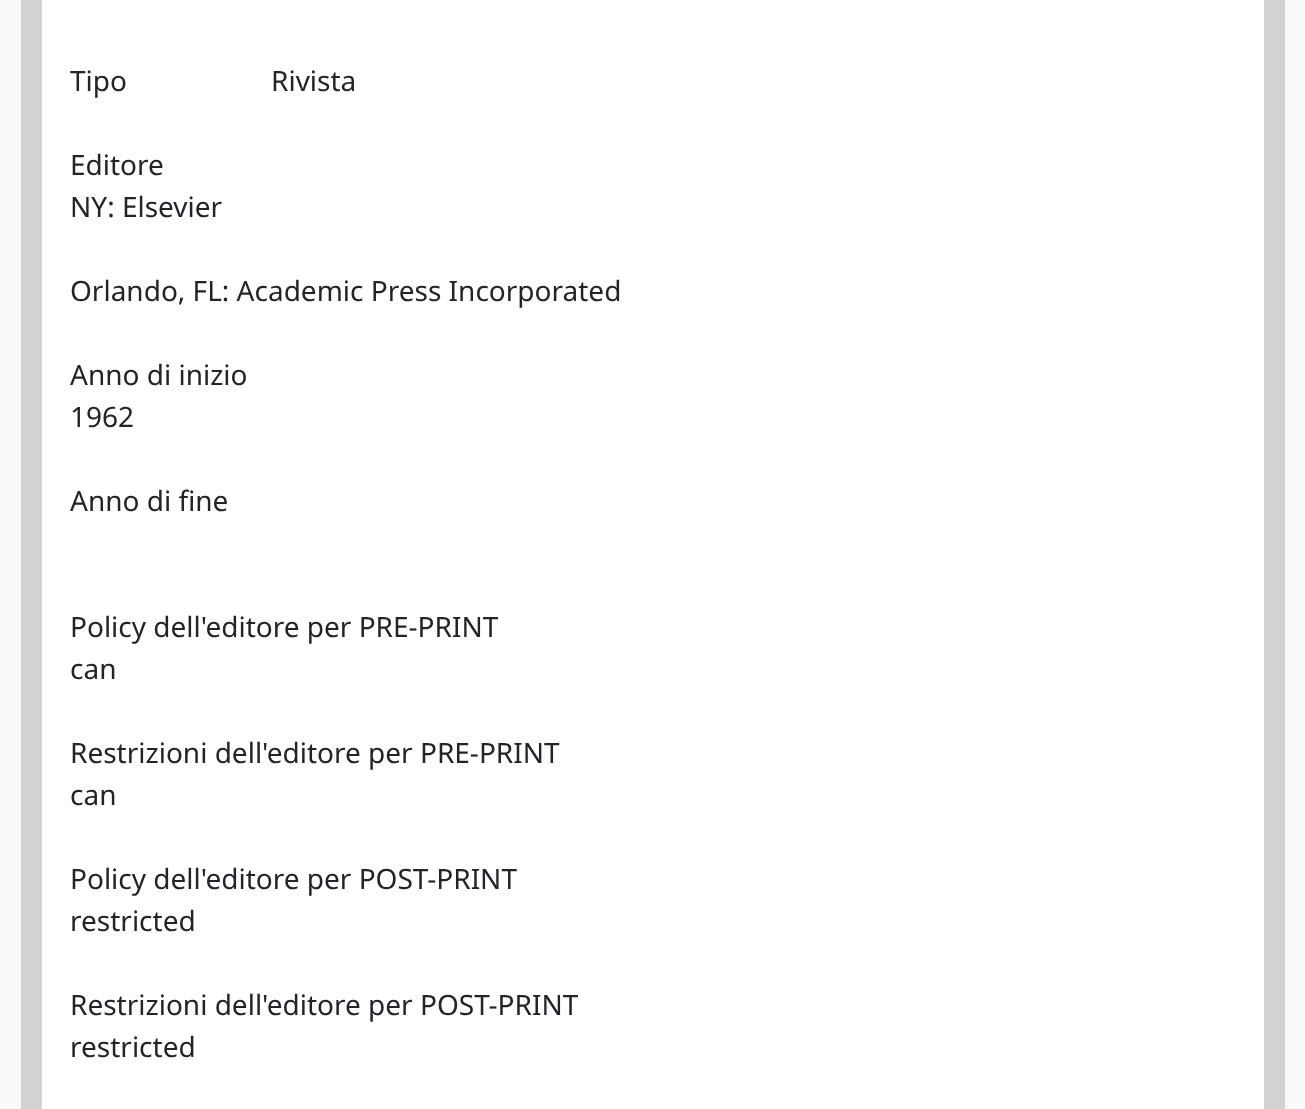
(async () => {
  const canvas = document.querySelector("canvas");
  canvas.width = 1305;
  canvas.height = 1109;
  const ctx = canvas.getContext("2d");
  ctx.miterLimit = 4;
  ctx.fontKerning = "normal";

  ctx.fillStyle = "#fbfafa";
  ctx.fillRect(0, 0, 1305, 1109);
  ctx.fillStyle = "#eeeeee";
  ctx.filter = "blur(5px)";
  ctx.beginPath();
  ctx.roundRect(25, -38, 1256, 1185, 23);
  ctx.fill();
  ctx.filter = "none";
  ctx.fillStyle = "#ffffff";
  ctx.beginPath();
  ctx.rect(31.5, -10.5, 1243, 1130);
  ctx.fill();
  ctx.strokeStyle = "#d2d2d2";
  ctx.lineWidth = 21;
  ctx.stroke();
  ctx.font = "28px Noto Sans";
  ctx.fillStyle = "#212529";
  for (const [text, x, y] of [
    ["Tipo", 70, 91],
    ["Rivista", 271, 91],
    ["Editore", 70, 175],
    ["NY: Elsevier", 70, 217],
    ["Orlando, FL: Academic Press Incorporated", 70, 301],
    ["Anno di inizio", 70, 385],
    ["1962", 70, 427],
    ["Anno di fine", 70, 511],
    ["Policy dell'editore per PRE-PRINT", 70, 637],
    ["can", 70, 679],
    ["Restrizioni dell'editore per PRE-PRINT", 70, 763],
    ["can", 70, 805],
    ["Policy dell'editore per POST-PRINT", 70, 889],
    ["restricted", 70, 931],
    ["Restrizioni dell'editore per POST-PRINT", 70, 1015],
    ["restricted", 70, 1057],
  ]) {
    ctx.fillText(text, x, y);
  }
})();
